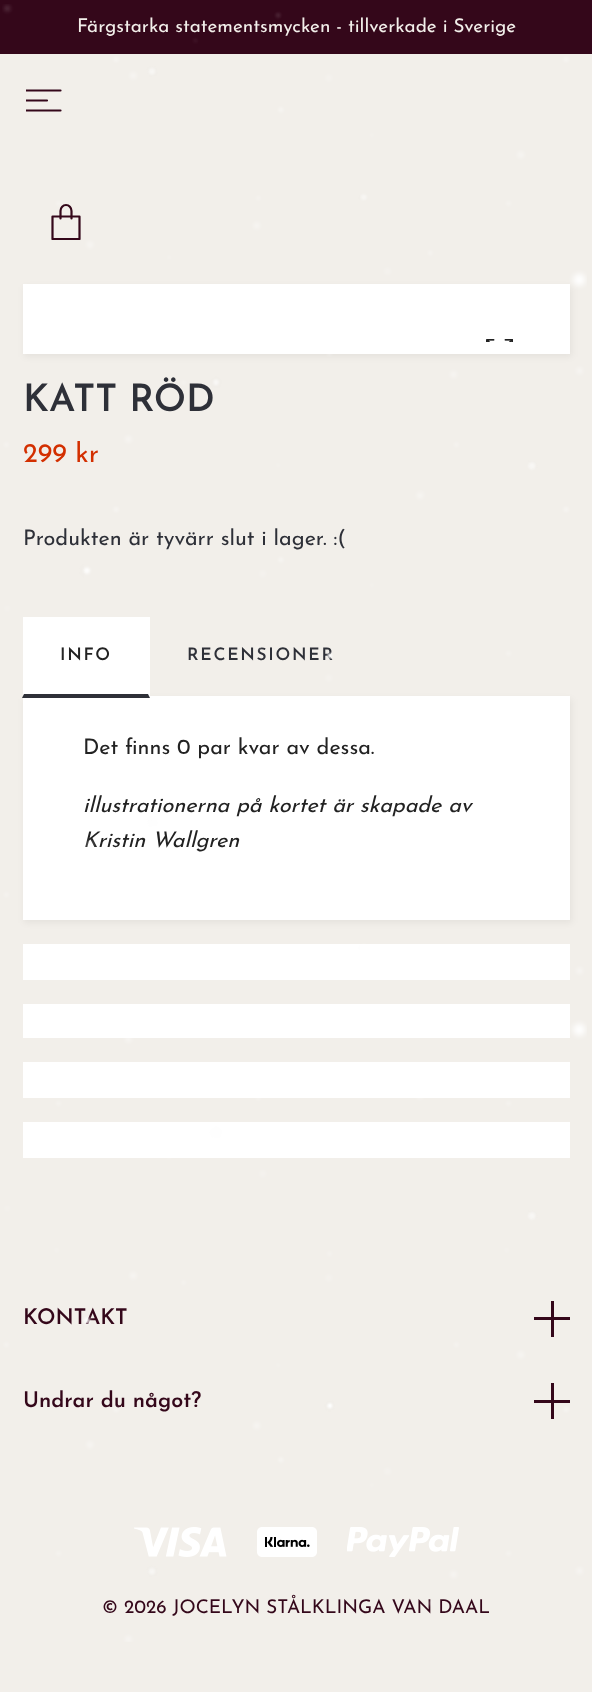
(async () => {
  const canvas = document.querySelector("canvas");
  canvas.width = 592;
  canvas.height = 1692;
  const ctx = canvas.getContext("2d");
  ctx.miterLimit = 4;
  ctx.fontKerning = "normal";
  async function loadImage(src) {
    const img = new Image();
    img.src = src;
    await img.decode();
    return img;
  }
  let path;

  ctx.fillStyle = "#f2efea";
  ctx.fillRect(0, 0, 592, 1692);
  ctx.fillStyle = "#34071a";
  ctx.fillRect(0, 0, 592, 54);
  ctx.save();
  ctx.beginPath();
  ctx.rect(26, 83, 36, 36);
  ctx.clip();
  path = new Path2D("M26.5 90.5H60.5M26.5 100.5H47M26.5 110.5H60.5");
  ctx.strokeStyle = "#34071a";
  ctx.lineWidth = 2.2;
  ctx.lineCap = "round";
  ctx.lineJoin = "round";
  ctx.stroke(path);
  ctx.restore();
  ctx.save();
  ctx.beginPath();
  ctx.rect(48, 204, 36, 36);
  ctx.clip();
  path = new Path2D("M52.5 216.5H79.5V239H52.5Z");
  ctx.strokeStyle = "#34071a";
  ctx.lineWidth = 2.2;
  ctx.lineCap = "round";
  ctx.lineJoin = "round";
  ctx.stroke(path);
  ctx.restore();
  path = new Path2D("M60.5 218.5V211C60.5 207.5 63 205 66 205C69 205 71.5 207.5 71.5 211V218.5");
  ctx.strokeStyle = "#34071a";
  ctx.lineWidth = 2.2;
  ctx.lineCap = "round";
  ctx.lineJoin = "round";
  ctx.stroke(path);
  ctx.fillStyle = "rgba(0, 0, 0, 0.05)";
  ctx.filter = "blur(3px)";
  ctx.beginPath();
  ctx.rect(24, 287, 548, 70);
  ctx.fill();
  ctx.filter = "none";
  ctx.fillStyle = "#ffffff";
  ctx.fillRect(23, 284, 547, 70);
  ctx.drawImage(await loadImage("img/2.png"), 486, 339, 27, 3);
  ctx.fillStyle = "rgba(0, 0, 0, 0.05)";
  ctx.filter = "blur(3px)";
  ctx.beginPath();
  ctx.rect(24, 699, 548, 224);
  ctx.fill();
  ctx.filter = "none";
  ctx.fillStyle = "#ffffff";
  ctx.fillRect(23, 617, 127, 79);
  ctx.fillRect(23, 696, 547, 224);
  ctx.fillStyle = "#2e3038";
  path = new Path2D("M150 698H22L24 694H148Z");
  ctx.fill(path);
  for (const [x, y, w, h, color] of [
    [23, 944, 547, 36, "#ffffff"],
    [23, 1004, 547, 34, "#ffffff"],
    [23, 1062, 547, 36, "#ffffff"],
    [23, 1122, 547, 36, "#ffffff"],
    [551, 1301, 3, 36, "#34071a"],
    [534, 1317, 36, 3, "#34071a"],
    [551, 1383, 3, 36, "#34071a"],
    [534, 1400, 36, 3, "#34071a"],
  ]) {
    ctx.fillStyle = color;
    ctx.fillRect(x, y, w, h);
  }
  ctx.drawImage(await loadImage("img/3.png"), 134, 1527, 93, 30);
  ctx.drawImage(await loadImage("img/4.png"), 257, 1527, 60, 30);
  ctx.drawImage(await loadImage("img/5.png"), 347, 1527, 112, 30);
  ctx.font = "18.9px Josefin Sans";
  ctx.fillStyle = "#f2efea";
  ctx.fillText("Färgstarka statementsmycken - tillverkade i Sverige", 77, 32);
  ctx.font = "600 37.75px Josefin Sans";
  ctx.fillStyle = "#2e3038";
  ctx.fillText("KATT RÖD", 23, 411);
  ctx.font = "27px Josefin Sans";
  ctx.fillStyle = "#d32f00";
  ctx.fillText("299 kr", 23, 462);
  ctx.font = "21.6px Josefin Sans";
  ctx.fillStyle = "#2e3038";
  ctx.fillText("Produkten är tyvärr slut i lager. :(", 23, 545);
  ctx.letterSpacing = "1.75px";
  ctx.font = "600 17.25px Josefin Sans";
  ctx.fillStyle = "#222222";
  ctx.fillText("INFO", 60, 660);
  ctx.fillStyle = "#2e3038";
  ctx.fillText("RECENSIONER", 187, 660);
  ctx.letterSpacing = "0px";
  ctx.font = "21.6px Josefin Sans";
  ctx.fillStyle = "#222222";
  ctx.fillText("Det finns 0 par kvar av dessa.", 83, 754);
  ctx.font = "italic 21.6px Josefin Sans";
  ctx.fillText("illustrationerna på kortet är skapade av", 83, 812);
  ctx.fillText("Kristin Wallgren", 83, 847);
  ctx.font = "600 21.6px Josefin Sans";
  ctx.fillStyle = "#34071a";
  ctx.fillText("KONTAKT", 23, 1324);
  ctx.fillText("Undrar du något?", 23, 1407);
  ctx.font = "18.9px Josefin Sans";
  ctx.fillText("© 2026 JOCELYN STÅLKLINGA VAN DAAL", 102, 1613);
  ctx.drawImage(await loadImage("img/1.png"), 2, 4, 585, 1638);
})();
